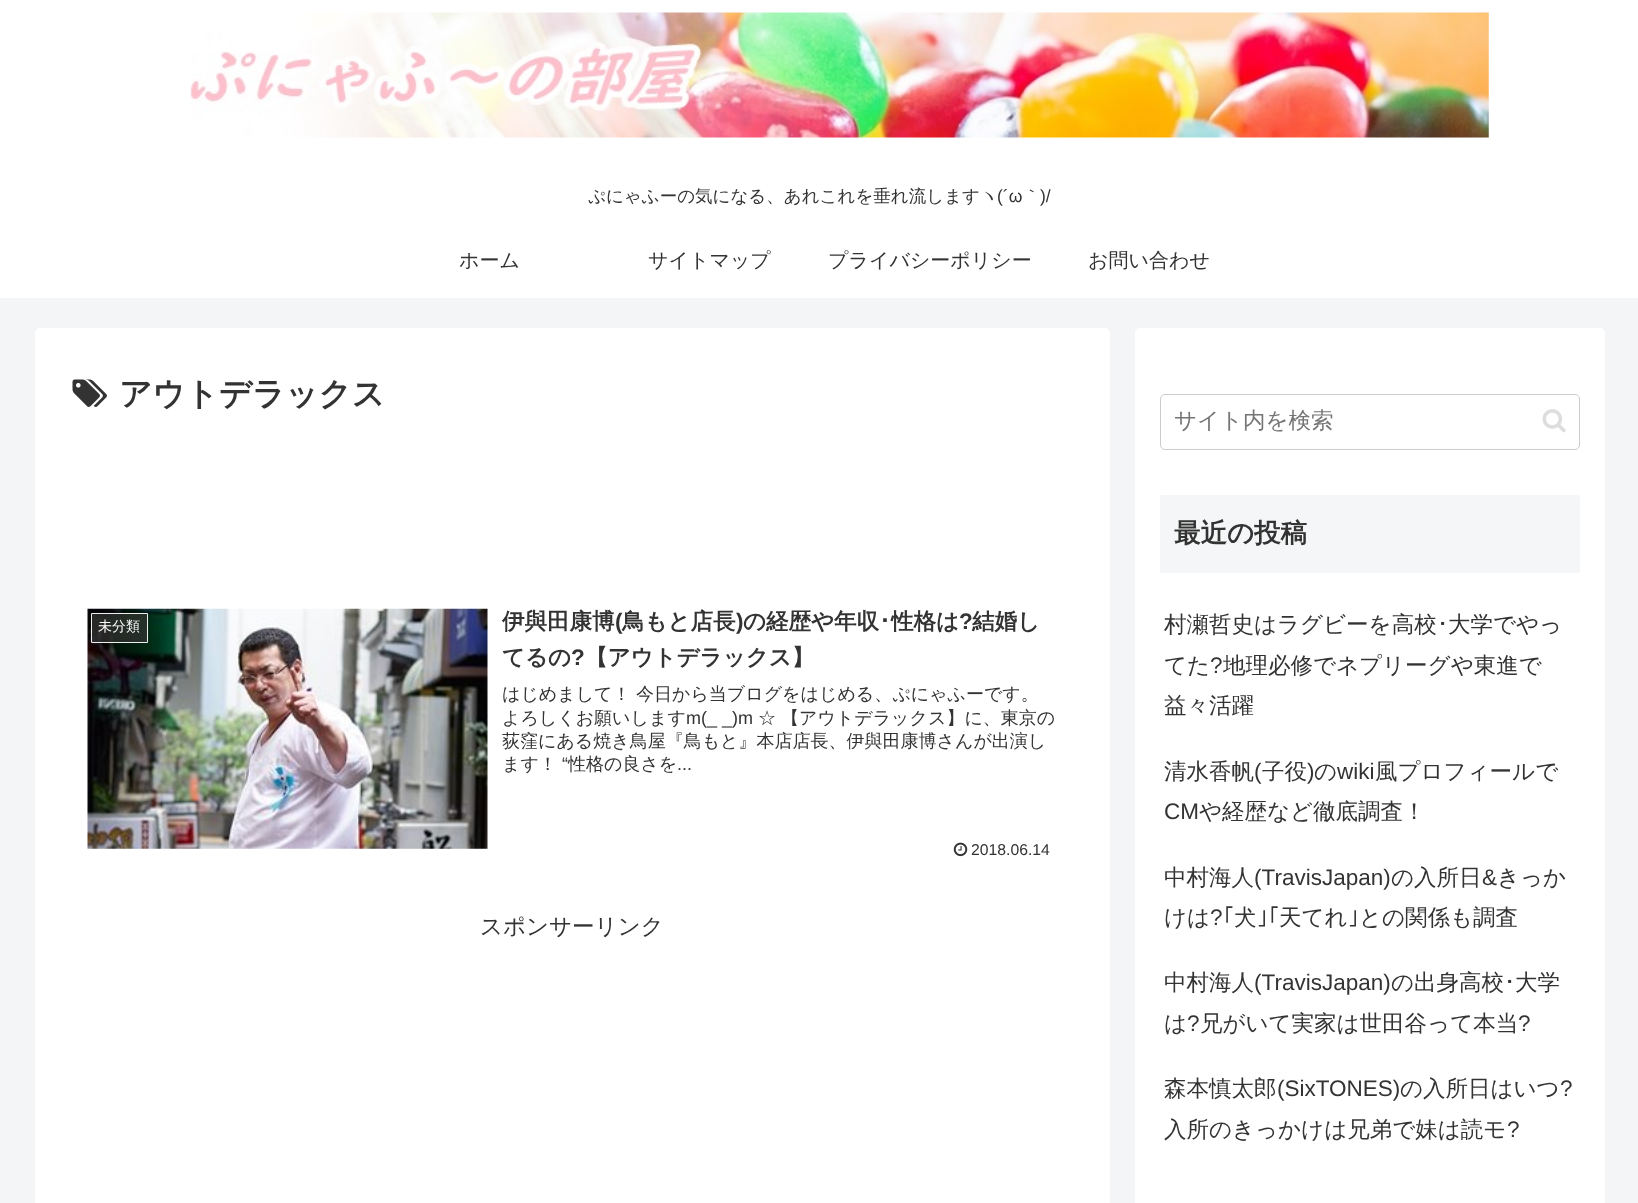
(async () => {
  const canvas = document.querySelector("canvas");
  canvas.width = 1638;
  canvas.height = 1203;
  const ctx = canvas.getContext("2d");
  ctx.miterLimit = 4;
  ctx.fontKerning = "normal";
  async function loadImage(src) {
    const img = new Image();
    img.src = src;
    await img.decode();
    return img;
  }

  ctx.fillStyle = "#f4f5f7";
  ctx.fillRect(0, 0, 1638, 1203);
  ctx.fillStyle = "#ffffff";
  ctx.fillRect(0, 0, 1638, 298);
  ctx.drawImage(await loadImage("img/1.png"), 190, 12, 1299, 126);
  ctx.beginPath();
  ctx.roundRect(35, 328, 1075, 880, 5);
  ctx.fill();
  ctx.drawImage(await loadImage("img/2.png"), 72, 379, 35, 28);
  ctx.drawImage(await loadImage("img/3.png"), 87, 608, 401, 241);
  ctx.fillStyle = "rgba(51, 51, 51, 0.7)";
  ctx.beginPath();
  ctx.rect(91.5, 613.5, 56, 29);
  ctx.fill();
  ctx.strokeStyle = "#eeeeee";
  ctx.stroke();
  ctx.drawImage(await loadImage("img/4.png"), 953, 842, 15, 15);
  ctx.fillStyle = "#ffffff";
  ctx.beginPath();
  ctx.roundRect(1135, 328, 470, 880, 5);
  ctx.fill();
  ctx.beginPath();
  ctx.roundRect(1160.5, 394.5, 419, 55, 4.5);
  ctx.strokeStyle = "#cccccc";
  ctx.stroke();
  ctx.drawImage(await loadImage("img/5.png"), 1542, 409, 24, 24);
  ctx.fillStyle = "#f5f6f7";
  ctx.beginPath();
  ctx.roundRect(1160, 495, 420, 78, 2.5);
  ctx.fill();
  ctx.font = "500 17.5px WenQuanYi Zen Hei";
  ctx.fillStyle = "#333333";
  ctx.fillText("ぷにゃふーの気になる、あれこれを垂れ流しますヽ", 588, 202);
  ctx.font = "17.5px Liberation Sans";
  ctx.fillText("(´ω", 997, 202);
  ctx.font = "500 17.5px WenQuanYi Zen Hei";
  ctx.fillText("｀", 1023, 202);
  ctx.font = "17.5px Liberation Sans";
  ctx.fillText(")/", 1040, 202);
  ctx.font = "500 20px WenQuanYi Zen Hei";
  for (const [text, x, y] of [
    ["ホーム", 459, 267],
    ["サイトマップ", 648, 267],
    ["プライバシーポリシー", 828, 267],
    ["お問い合わせ", 1088, 267],
  ]) {
    ctx.fillText(text, x, y);
  }
  ctx.font = "bold 32.5px WenQuanYi Zen Hei";
  ctx.fillText("アウトデラックス", 119, 405);
  ctx.font = "500 14px WenQuanYi Zen Hei";
  ctx.fillStyle = "#ffffff";
  ctx.fillText("未分類", 98, 631);
  ctx.font = "bold 22.5px WenQuanYi Zen Hei";
  ctx.fillStyle = "#333333";
  ctx.fillText("伊與田康博", 502, 629);
  ctx.font = "bold 22.5px Liberation Sans";
  ctx.fillText("(", 615, 629);
  ctx.font = "bold 22.5px WenQuanYi Zen Hei";
  ctx.fillText("鳥もと店長", 622, 629);
  ctx.font = "bold 22.5px Liberation Sans";
  ctx.fillText(")", 736, 629);
  ctx.font = "bold 22.5px WenQuanYi Zen Hei";
  ctx.fillText("の経歴や年収", 743, 629);
  ctx.font = "bold 22.5px IPAPGothic";
  ctx.fillText("･", 879, 629);
  ctx.font = "bold 22.5px WenQuanYi Zen Hei";
  ctx.fillText("性格は", 891, 629);
  ctx.font = "bold 22.5px Liberation Sans";
  ctx.fillText("?", 959, 629);
  ctx.font = "bold 22.5px WenQuanYi Zen Hei";
  ctx.fillText("結婚し", 972, 629);
  ctx.fillText("てるの", 502, 665);
  ctx.font = "bold 22.5px Liberation Sans";
  ctx.fillText("?", 571, 665);
  ctx.font = "bold 22.5px WenQuanYi Zen Hei";
  ctx.fillText("【アウトデラックス】", 585, 665);
  ctx.font = "500 18px WenQuanYi Zen Hei";
  for (const [text, x, y] of [
    ["はじめまして！", 502, 700],
    ["今日から当ブログをはじめる、ぷにゃふーです。", 636, 700],
    ["よろしくお願いします", 502, 724],
  ]) {
    ctx.fillText(text, x, y);
  }
  ctx.font = "18px Liberation Sans";
  ctx.fillText("m(_ _)m", 686, 724);
  ctx.font = "500 18px WenQuanYi Zen Hei";
  for (const [text, x, y] of [
    ["☆", 758, 724],
    ["【アウトデラックス】に、東京の", 781, 724],
    ["荻窪にある焼き鳥屋『鳥もと』本店店長、伊與田康博さんが出演し", 502, 747],
    ["ます！", 502, 770],
  ]) {
    ctx.fillText(text, x, y);
  }
  ctx.font = "18px Liberation Sans";
  ctx.fillText("“", 562, 770);
  ctx.font = "500 18px WenQuanYi Zen Hei";
  ctx.fillText("性格の良さを", 568, 770);
  ctx.font = "18px Liberation Sans";
  ctx.fillText("...", 677, 770);
  ctx.font = "15.75px Liberation Sans";
  ctx.fillText("2018.06.14", 971, 855);
  ctx.font = "500 22.5px WenQuanYi Zen Hei";
  ctx.fillText("スポンサーリンク", 480, 934);
  ctx.fillStyle = "#757575";
  ctx.fillText("サイト内を検索", 1174, 428);
  ctx.font = "bold 26.5px WenQuanYi Zen Hei";
  ctx.fillStyle = "#333333";
  ctx.fillText("最近の投稿", 1174, 542);
  ctx.font = "500 22.5px WenQuanYi Zen Hei";
  ctx.fillText("村瀬哲史はラグビーを高校", 1164, 632);
  ctx.font = "22.5px IPAPGothic";
  ctx.fillText("･", 1437, 632);
  ctx.font = "500 22.5px WenQuanYi Zen Hei";
  ctx.fillText("大学でやっ", 1448, 632);
  ctx.fillText("てた", 1164, 673);
  ctx.font = "22.5px Liberation Sans";
  ctx.fillText("?", 1210, 673);
  ctx.font = "500 22.5px WenQuanYi Zen Hei";
  for (const [text, x, y] of [
    ["地理必修でネプリーグや東進で", 1223, 673],
    ["益々活躍", 1164, 713],
    ["清水香帆", 1164, 779],
  ]) {
    ctx.fillText(text, x, y);
  }
  ctx.font = "22.5px Liberation Sans";
  ctx.fillText("(", 1254, 779);
  ctx.font = "500 22.5px WenQuanYi Zen Hei";
  ctx.fillText("子役", 1262, 779);
  ctx.font = "22.5px Liberation Sans";
  ctx.fillText(")", 1307, 779);
  ctx.font = "500 22.5px WenQuanYi Zen Hei";
  ctx.fillText("の", 1314, 779);
  ctx.font = "22.5px Liberation Sans";
  ctx.fillText("wiki", 1337, 779);
  ctx.font = "500 22.5px WenQuanYi Zen Hei";
  ctx.fillText("風プロフィールで", 1375, 779);
  ctx.font = "22.5px Liberation Sans";
  ctx.fillText("CM", 1164, 819);
  ctx.font = "500 22.5px WenQuanYi Zen Hei";
  ctx.fillText("や経歴など徹底調査！", 1199, 819);
  ctx.fillText("中村海人", 1164, 885);
  ctx.font = "22.5px Liberation Sans";
  ctx.fillText("(TravisJapan)", 1254, 885);
  ctx.font = "500 22.5px WenQuanYi Zen Hei";
  ctx.fillText("の入所日", 1391, 885);
  ctx.font = "22.5px Liberation Sans";
  ctx.fillText("&", 1482, 885);
  ctx.font = "500 22.5px WenQuanYi Zen Hei";
  ctx.fillText("きっか", 1497, 885);
  ctx.fillText("けは", 1164, 925);
  ctx.font = "22.5px Liberation Sans";
  ctx.fillText("?", 1210, 925);
  ctx.font = "22.5px IPAPGothic";
  ctx.fillText("｢", 1223, 925);
  ctx.font = "500 22.5px WenQuanYi Zen Hei";
  ctx.fillText("犬", 1234, 925);
  ctx.font = "22.5px IPAPGothic";
  ctx.fillText("｣｢", 1257, 925);
  ctx.font = "500 22.5px WenQuanYi Zen Hei";
  ctx.fillText("天てれ", 1279, 925);
  ctx.font = "22.5px IPAPGothic";
  ctx.fillText("｣", 1348, 925);
  ctx.font = "500 22.5px WenQuanYi Zen Hei";
  ctx.fillText("との関係も調査", 1359, 925);
  ctx.fillText("中村海人", 1164, 990);
  ctx.font = "22.5px Liberation Sans";
  ctx.fillText("(TravisJapan)", 1254, 990);
  ctx.font = "500 22.5px WenQuanYi Zen Hei";
  ctx.fillText("の出身高校", 1391, 990);
  ctx.font = "22.5px IPAPGothic";
  ctx.fillText("･", 1504, 990);
  ctx.font = "500 22.5px WenQuanYi Zen Hei";
  ctx.fillText("大学", 1515, 990);
  ctx.fillText("は", 1164, 1031);
  ctx.font = "22.5px Liberation Sans";
  ctx.fillText("?", 1187, 1031);
  ctx.font = "500 22.5px WenQuanYi Zen Hei";
  ctx.fillText("兄がいて実家は世田谷って本当", 1200, 1031);
  ctx.font = "22.5px Liberation Sans";
  ctx.fillText("?", 1518, 1031);
  ctx.font = "500 22.5px WenQuanYi Zen Hei";
  ctx.fillText("森本慎太郎", 1164, 1096);
  ctx.font = "22.5px Liberation Sans";
  ctx.fillText("(SixTONES)", 1277, 1096);
  ctx.font = "500 22.5px WenQuanYi Zen Hei";
  ctx.fillText("の入所日はいつ", 1400, 1096);
  ctx.font = "22.5px Liberation Sans";
  ctx.fillText("?", 1560, 1096);
  ctx.font = "500 22.5px WenQuanYi Zen Hei";
  ctx.fillText("入所のきっかけは兄弟で妹は読モ", 1164, 1137);
  ctx.font = "22.5px Liberation Sans";
  ctx.fillText("?", 1507, 1137);
})();
